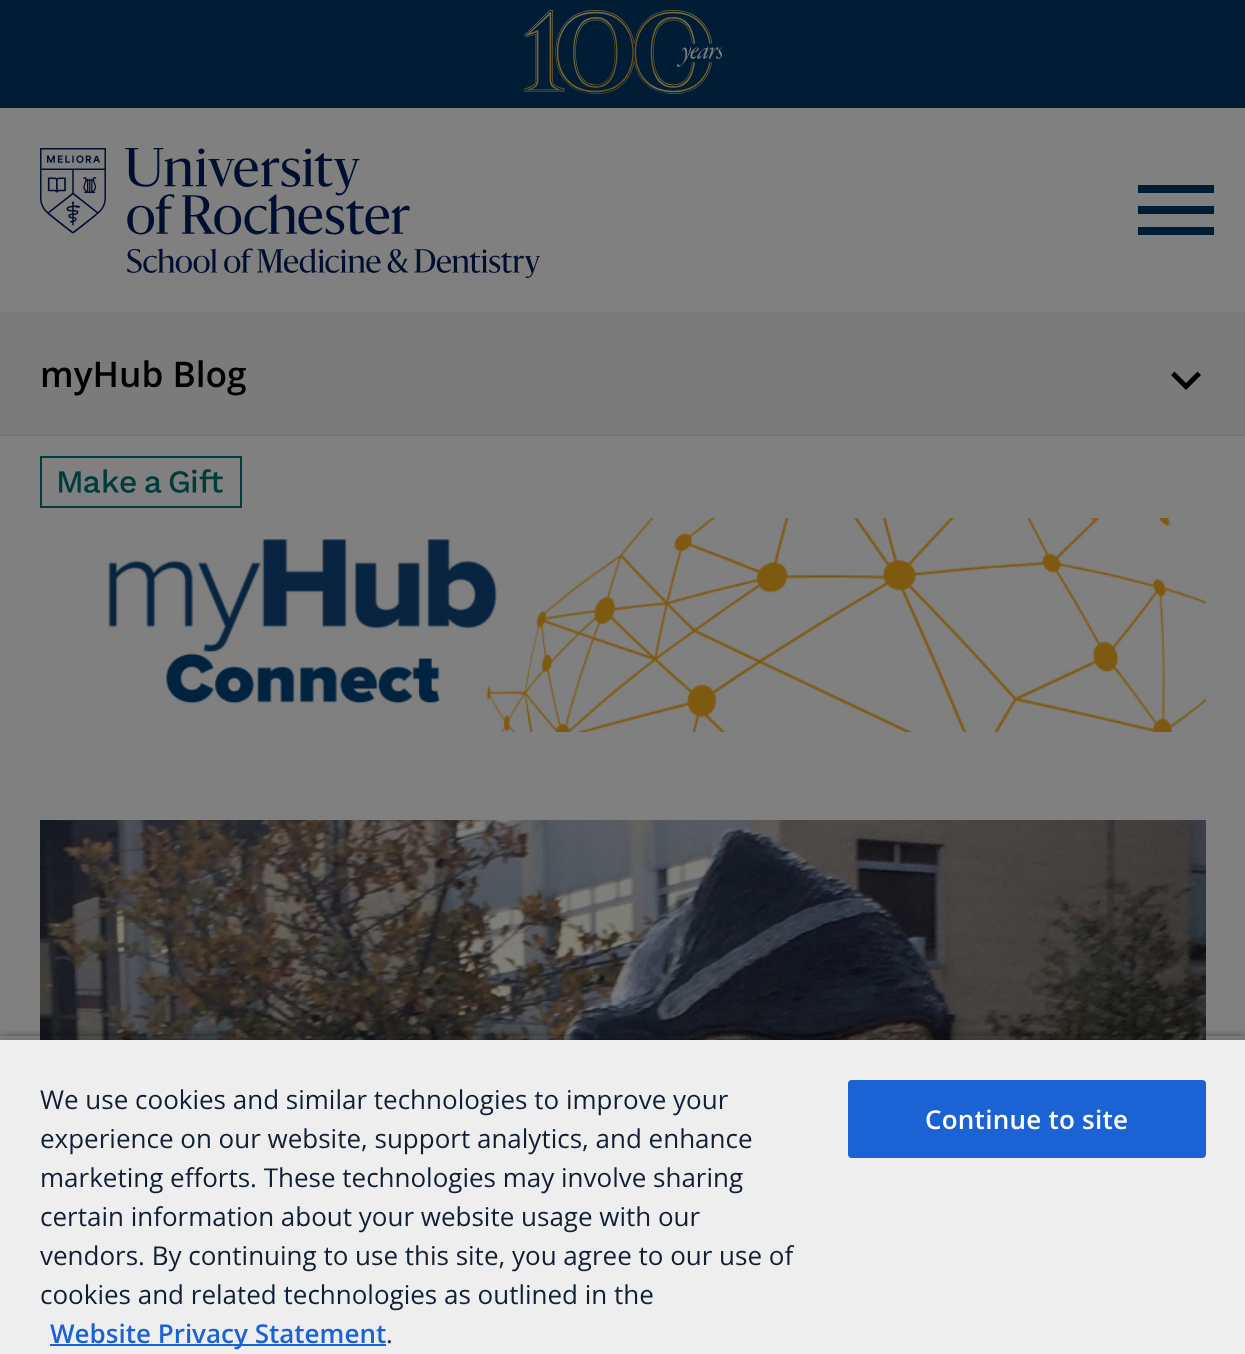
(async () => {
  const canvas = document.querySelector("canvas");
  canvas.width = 1245;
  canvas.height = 1354;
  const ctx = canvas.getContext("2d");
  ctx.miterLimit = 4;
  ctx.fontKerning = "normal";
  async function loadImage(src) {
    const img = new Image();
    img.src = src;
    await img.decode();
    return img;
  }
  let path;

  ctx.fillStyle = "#011d36";
  ctx.fillRect(0, 0, 1245, 1354);
  ctx.drawImage(await loadImage("img/1.png"), 524, 10, 198, 84);
  ctx.fillStyle = "#808080";
  ctx.fillRect(0, 108, 1245, 204);
  ctx.drawImage(await loadImage("img/2.png"), 40, 148, 500, 130);
  ctx.fillStyle = "#011d36";
  path = new Path2D("M1138 185H1214V193H1138ZM1138 214V206H1214V214ZM1138 235V227H1214V235Z");
  ctx.fill(path);
  ctx.fillStyle = "#808080";
  ctx.fillRect(0, 436, 1245, 604);
  ctx.fillStyle = "#7b7b7b";
  ctx.fillRect(0, 312, 1245, 122);
  ctx.fillStyle = "#000000";
  path = new Path2D("M1174.5 371.5L1186 383L1197.5 371.5L1201 375L1186 390L1171 375Z");
  ctx.fill(path);
  ctx.fillStyle = "#767676";
  ctx.fillRect(0, 434, 1245, 2);
  ctx.drawImage(await loadImage("img/3.png"), 40, 456, 202, 52);
  ctx.drawImage(await loadImage("img/4.png"), 108, 518, 1098, 214);
  ctx.drawImage(await loadImage("img/5.png"), 40, 820, 1166, 220);
  ctx.save();
  ctx.beginPath();
  ctx.rect(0, 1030, 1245, 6);
  ctx.clip();
  ctx.fillStyle = "rgba(0, 0, 0, 0.35)";
  ctx.filter = "blur(4px)";
  ctx.beginPath();
  ctx.rect(0, 1036, 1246, 318);
  ctx.fill();
  ctx.filter = "none";
  ctx.restore();
  ctx.fillStyle = "rgba(0, 0, 0, 0.2)";
  ctx.filter = "blur(4px)";
  ctx.beginPath();
  ctx.rect(0, 1040, 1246, 314);
  ctx.fill();
  ctx.filter = "none";
  ctx.fillStyle = "#eeeeee";
  ctx.fillRect(0, 1040, 1245, 314);
  ctx.fillStyle = "#1b62d5";
  ctx.fillRect(50, 1344, 336, 2);
  ctx.beginPath();
  ctx.roundRect(849, 1081, 356, 76, 3);
  ctx.fill();
  ctx.strokeStyle = "#1b62d5";
  ctx.lineWidth = 2;
  ctx.stroke();
  ctx.font = "600 35.25px Open Sans";
  ctx.fillStyle = "#000000";
  ctx.fillText("myHub Blog", 40, 387);
  ctx.font = "26px Open Sans";
  ctx.fillStyle = "#101f34";
  for (const [text, x, y] of [
    ["We use cookies and similar technologies to improve your", 40, 1109],
    ["experience on our website, support analytics, and enhance", 40, 1148],
    ["marketing efforts. These technologies may involve sharing", 40, 1187],
    ["certain information about your website usage with our", 40, 1226],
    ["vendors. By continuing to use this site, you agree to our use of", 40, 1265],
    ["cookies and related technologies as outlined in the", 40, 1304],
  ]) {
    ctx.fillText(text, x, y);
  }
  ctx.font = "600 26px Open Sans";
  ctx.fillStyle = "#1b62d5";
  ctx.fillText("Website Privacy Statement", 50, 1343);
  ctx.font = "26px Open Sans";
  ctx.fillStyle = "#101f34";
  ctx.fillText(".", 386, 1343);
  ctx.letterSpacing = "0.25px";
  ctx.font = "600 26px Open Sans";
  ctx.fillStyle = "#ffffff";
  ctx.fillText("Continue to site", 925, 1129);
})();
